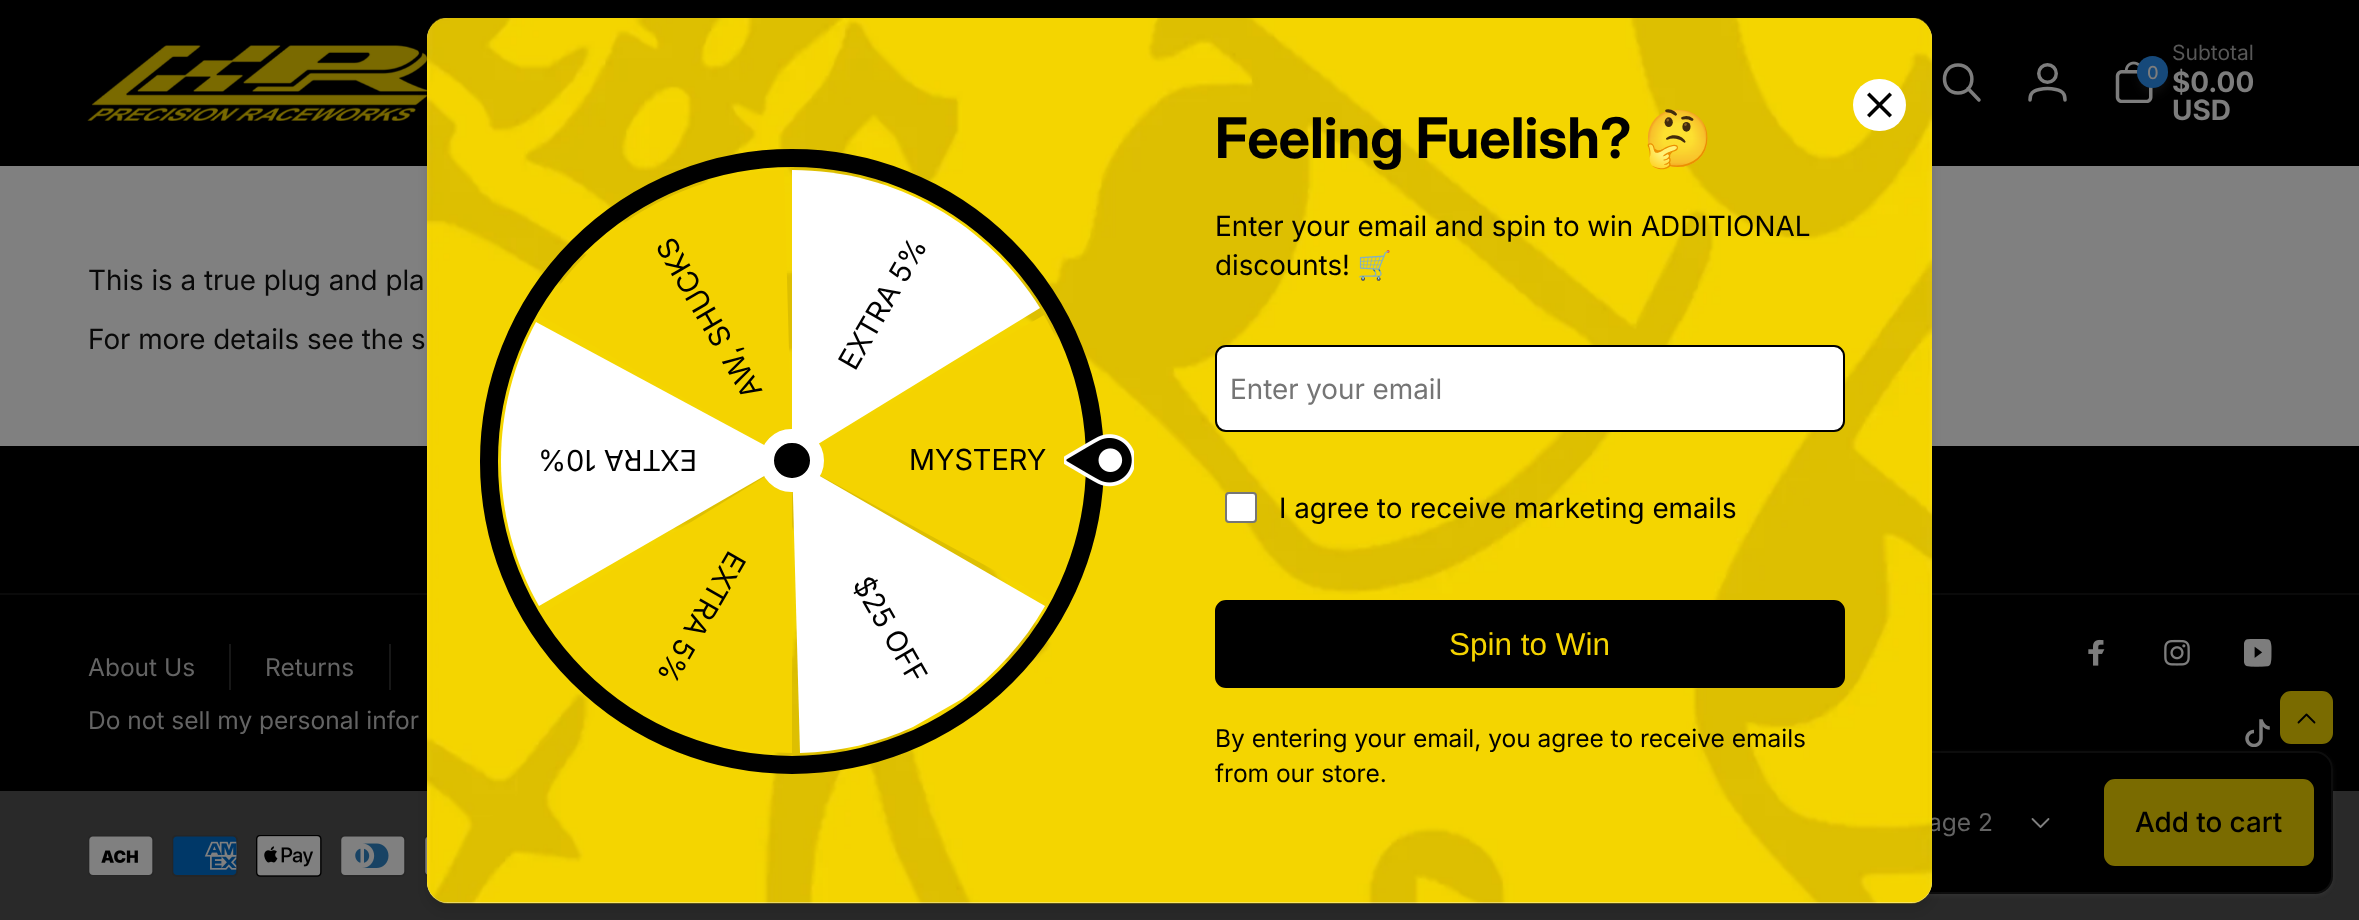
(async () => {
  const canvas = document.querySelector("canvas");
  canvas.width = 2359;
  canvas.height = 920;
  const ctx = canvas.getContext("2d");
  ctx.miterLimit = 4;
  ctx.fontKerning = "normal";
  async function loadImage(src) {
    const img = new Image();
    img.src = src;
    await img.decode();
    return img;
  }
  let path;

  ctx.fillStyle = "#000000";
  ctx.fillRect(0, 0, 2359, 920);
  ctx.drawImage(await loadImage("img/1.png"), 87, 45, 340, 76);
  path = new Path2D("M1979 100L1968 88.5M1958 93C1976.5 93 1976.5 65 1958 65C1940 65 1940 93 1958 93Z");
  ctx.strokeStyle = "#7d7d7d";
  ctx.lineWidth = 3.5;
  ctx.lineCap = "round";
  ctx.lineJoin = "round";
  ctx.stroke(path);
  ctx.beginPath();
  ctx.arc(2047.5, 73.5, 8.75, 0, Math.PI * 2);
  ctx.stroke();
  path = new Path2D("M2047.5 88.5C2051.5 88.5 2060.5 89.5 2063 93C2065 95 2065 97 2065 100M2047.5 88.5C2043.5 88.5 2034.5 89.5 2032 93C2030 95 2030 97 2030 100");
  ctx.lineJoin = "miter";
  ctx.stroke(path);
  ctx.drawImage(await loadImage("img/2.png"), 2115, 61, 38, 42);
  ctx.fillStyle = "rgba(125, 125, 125, 0.1)";
  ctx.filter = "blur(5px)";
  ctx.beginPath();
  ctx.roundRect(2139, 65, 28, 28, 14);
  ctx.fill();
  ctx.filter = "none";
  ctx.fillStyle = "#16497a";
  ctx.beginPath();
  ctx.roundRect(2137, 56, 31, 32, 15.5);
  ctx.fill();
  ctx.fillStyle = "#808080";
  ctx.fillRect(0, 166, 2359, 280);
  ctx.drawImage(await loadImage("img/8.png"), 2245, 719, 25, 28);
  ctx.fillStyle = "#292929";
  ctx.fillRect(0, 791, 2359, 129);
  ctx.fillStyle = "rgba(128, 128, 128, 0.1)";
  ctx.filter = "blur(2px)";
  ctx.beginPath();
  ctx.roundRect(1554, 753, 779, 143, 18);
  ctx.fill();
  ctx.filter = "none";
  ctx.fillStyle = "#000000";
  ctx.beginPath();
  ctx.roundRect(1554, 751, 779, 143, 18);
  ctx.fill();
  ctx.beginPath();
  ctx.roundRect(1555, 752, 777, 141, 17);
  ctx.strokeStyle = "rgba(128, 128, 128, 0.1)";
  ctx.lineWidth = 2;
  ctx.stroke();
  ctx.fillStyle = "#0a0a0a";
  ctx.fillRect(0, 593, 2359, 2);
  ctx.drawImage(await loadImage("img/13.png"), 424, 835, 3, 41);
  ctx.fillStyle = "rgba(0, 0, 0, 0.1)";
  ctx.filter = "blur(5px)";
  ctx.beginPath();
  ctx.roundRect(427, 25, 1505, 885, 21);
  ctx.fill();
  ctx.filter = "none";
  path = new Path2D("M2048.5 819L2040.5 827L2032.5 819");
  ctx.strokeStyle = "#808080";
  ctx.lineWidth = 1.8;
  ctx.lineJoin = "round";
  ctx.stroke(path);
  ctx.fillStyle = "#7a6b00";
  ctx.beginPath();
  ctx.roundRect(2105, 780, 208, 85, 10);
  ctx.fill();
  ctx.strokeStyle = "#7a6b00";
  ctx.lineWidth = 2;
  ctx.lineJoin = "miter";
  ctx.stroke();
  ctx.fillStyle = "#171717";
  ctx.fillRect(229, 644, 2, 46);
  ctx.fillRect(389, 644, 2, 46);
  ctx.drawImage(await loadImage("img/5.png"), 2088, 639, 17, 27);
  ctx.drawImage(await loadImage("img/6.png"), 2164, 639, 26, 27);
  ctx.drawImage(await loadImage("img/7.png"), 2244, 639, 28, 28);
  ctx.drawImage(await loadImage("img/9.png"), 88, 835, 66, 41);
  ctx.drawImage(await loadImage("img/10.png"), 172, 835, 66, 42);
  ctx.drawImage(await loadImage("img/11.png"), 256, 835, 66, 42);
  ctx.drawImage(await loadImage("img/12.png"), 340, 835, 66, 42);
  ctx.fillStyle = "#7a6b00";
  ctx.beginPath();
  ctx.roundRect(2281, 692, 51, 51, 10);
  ctx.fill();
  ctx.stroke();
  path = new Path2D("M2298.5 722.5L2306.5 714.5L2314.5 722.5");
  ctx.strokeStyle = "#000000";
  ctx.lineWidth = 1.8;
  ctx.lineJoin = "round";
  ctx.stroke(path);
  ctx.font = "500 18px 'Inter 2'";
  ctx.fillStyle = "#7d7d7d";
  ctx.fillText("0", 2147, 79);
  ctx.font = "21px 'Inter 2'";
  ctx.fillStyle = "#585858";
  ctx.fillText("Subtotal", 2172, 60);
  ctx.font = "bold 28px Inter";
  ctx.fillStyle = "#7d7d7d";
  ctx.fillText("$0.00", 2172, 92);
  ctx.fillText("USD", 2172, 120);
  ctx.font = "28px Inter";
  ctx.fillStyle = "#090909";
  ctx.fillText("This is a true plug and pla", 88, 290);
  ctx.fillText("For more details see the s", 88, 349);
  ctx.font = "24.5px 'Inter 2'";
  ctx.fillStyle = "#646464";
  ctx.fillText("age 2", 1928, 831);
  ctx.fillStyle = "#ffffff";
  ctx.beginPath();
  ctx.roundRect(427, 18, 1505, 885, 21);
  ctx.fill();
  ctx.drawImage(await loadImage("img/3.png"), 427, 18, 1505, 886);
  ctx.beginPath();
  ctx.roundRect(1853, 79, 53, 52, 26);
  ctx.fill();
  ctx.fillStyle = "#000000";
  path = new Path2D("M1869.5 92.5L1892 115L1889.5 117.5L1867 95Z");
  ctx.fill(path);
  path = new Path2D("M1867 115L1889.5 92.5L1892 95L1869.5 117.5Z");
  ctx.fill(path);
  ctx.beginPath();
  ctx.roundRect(489, 158, 606, 607, 303);
  ctx.lineWidth = 18;
  ctx.lineJoin = "miter";
  ctx.stroke();
  ctx.fillStyle = "#ffffff";
  path = new Path2D("M792 170C897 170 988 225 1040 308L792 460Z");
  ctx.fill(path);
  ctx.font = "29px 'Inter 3'";
  ctx.fillStyle = "#000000";
  ctx.save();
  ctx.translate(855, 372);
  ctx.rotate(-60 * Math.PI / 180);
  ctx.fillText("EXTRA 5%", 0, 0);
  ctx.restore();
  ctx.fillStyle = "#f4d300";
  path = new Path2D("M1044 315L793 460V461L1049 600C1096 511 1094 401 1044 315Z");
  ctx.fill(path);
  ctx.drawImage(await loadImage("img/4.png"), 1064, 434, 70, 53);
  ctx.fillStyle = "#ffffff";
  path = new Path2D("M501 461C501 411 514 363 536 322L792 460L539 606C515 564 501 514 501 462Z");
  ctx.fill(path);
  ctx.fillStyle = "#000000";
  ctx.save();
  ctx.translate(697, 450);
  ctx.rotate(180 * Math.PI / 180);
  ctx.fillText("EXTRA 10%", 0, 0);
  ctx.restore();
  ctx.fillStyle = "#f4d300";
  path = new Path2D("M622 699C591 676 564 646 543 613L792 460V753C750 753 709 744 671 727Z");
  ctx.fill(path);
  ctx.fillStyle = "#000000";
  ctx.fillText("MYSTERY", 909, 470);
  ctx.fillStyle = "#ffffff";
  path = new Path2D("M913 727C878 743 840 752 800 753L792 460L1045 606C1024 643 995 674 962 699Z");
  ctx.fill(path);
  ctx.fillStyle = "#f4d300";
  path = new Path2D("M792 460L540 315C589 230 680 173 784 170Z");
  ctx.fill(path);
  ctx.fillStyle = "#000000";
  ctx.beginPath();
  ctx.roundRect(767, 436, 50, 49, 24.5);
  ctx.fill();
  ctx.strokeStyle = "#ffffff";
  ctx.lineWidth = 14;
  ctx.stroke();
  ctx.save();
  ctx.translate(729, 549);
  ctx.rotate(120 * Math.PI / 180);
  ctx.fillText("EXTRA 5%", 0, 0);
  ctx.restore();
  ctx.save();
  ctx.translate(852, 584);
  ctx.rotate(60 * Math.PI / 180);
  ctx.fillText("$25 OFF", 0, 0);
  ctx.restore();
  ctx.save();
  ctx.translate(763, 391);
  ctx.rotate(-120 * Math.PI / 180);
  ctx.fillText("AW, SHUCKS", 0, 0);
  ctx.restore();
  ctx.beginPath();
  ctx.roundRect(1217, 602, 626, 84, 9);
  ctx.fill();
  ctx.strokeStyle = "#000000";
  ctx.lineWidth = 4;
  ctx.stroke();
  ctx.font = "31.5px Liberation Sans";
  ctx.fillStyle = "#f4d300";
  ctx.fillText("Spin to Win", 1449, 655);
  ctx.font = "24.5px 'Inter 2'";
  ctx.fillStyle = "#000000";
  ctx.fillText("from our store.", 1215, 782);
  ctx.fillText("By entering your email, you agree to receive emails", 1215, 747);
  ctx.font = "28px Inter";
  ctx.fillText("I agree to receive marketing emails", 1279, 518);
  ctx.fillStyle = "#ffffff";
  ctx.beginPath();
  ctx.roundRect(1226, 493, 30, 29, 3);
  ctx.fill();
  ctx.strokeStyle = "#767676";
  ctx.lineWidth = 2;
  ctx.stroke();
  ctx.beginPath();
  ctx.roundRect(1216, 346, 628, 85, 10);
  ctx.fill();
  ctx.strokeStyle = "#000000";
  ctx.stroke();
  ctx.fillStyle = "#757575";
  ctx.fillText("Enter your email", 1230, 399);
  ctx.font = "28px Noto Color Emoji";
  ctx.fillStyle = "#000000";
  ctx.fillText("🛒", 1357, 275);
  ctx.font = "28px Inter";
  ctx.fillText("discounts!", 1215, 275);
  ctx.fillText("Enter your email and spin to win ADDITIONAL", 1215, 236);
  ctx.font = "bold 56px Noto Color Emoji";
  ctx.fillText("🤔", 1643, 158);
  ctx.font = "bold 56px 'Inter 2'";
  ctx.fillText("Feeling Fuelish?", 1215, 158);
  ctx.font = "500 28px Inter";
  ctx.fillText("Add to cart", 2135, 832);
  ctx.font = "24.5px 'Inter 2'";
  ctx.fillStyle = "#646464";
  for (const [text, x, y] of [
    ["About Us", 88, 676],
    ["Returns", 265, 676],
    ["Do not sell my personal infor", 88, 729],
  ]) {
    ctx.fillText(text, x, y);
  }
})();
